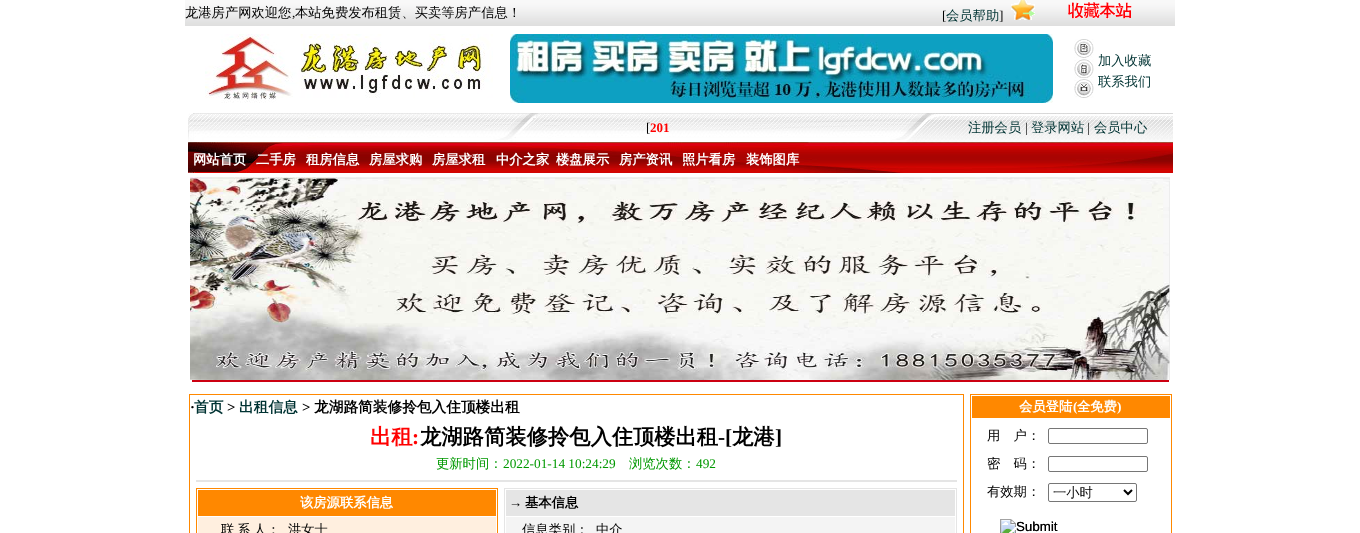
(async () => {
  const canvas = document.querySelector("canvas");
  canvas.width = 1360;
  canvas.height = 533;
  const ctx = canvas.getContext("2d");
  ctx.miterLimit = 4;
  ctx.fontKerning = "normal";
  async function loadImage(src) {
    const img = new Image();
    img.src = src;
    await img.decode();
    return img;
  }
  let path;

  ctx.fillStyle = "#ffffff";
  ctx.fillRect(0, 0, 1360, 533);
  ctx.drawImage(await loadImage("img/1.png"), 185, 0, 990, 26);
  ctx.drawImage(await loadImage("img/2.png"), 1011, 0, 121, 20);
  ctx.drawImage(await loadImage("img/3.png"), 205, 34, 288, 69);
  ctx.drawImage(await loadImage("img/4.png"), 510, 34, 543, 69);
  ctx.drawImage(await loadImage("img/5.png"), 1074, 39, 20, 59);
  ctx.drawImage(await loadImage("img/6.png"), 188, 113, 985, 29);
  ctx.drawImage(await loadImage("img/7.png"), 188, 142, 985, 31);
  ctx.drawImage(await loadImage("img/8.png"), 190, 177, 980, 203);
  ctx.drawImage(await loadImage("img/9.png"), 192, 380, 977, 2);
  ctx.strokeStyle = "#ff8800";
  ctx.strokeRect(189.5, 394.5, 774, 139);
  ctx.fillStyle = "#e5e5e5";
  ctx.fillRect(196, 480, 761, 2);
  ctx.strokeRect(196.5, 488.5, 301, 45);
  ctx.fillStyle = "#ff8800";
  ctx.fillRect(198, 490, 298, 26);
  ctx.fillStyle = "#ffefdf";
  ctx.fillRect(198, 517, 298, 16);
  ctx.strokeStyle = "#e5e5e5";
  ctx.strokeRect(504.5, 488.5, 452, 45);
  ctx.fillStyle = "#e5e5e5";
  ctx.fillRect(506, 490, 449, 26);
  ctx.fillStyle = "#f4f4f4";
  ctx.fillRect(506, 517, 449, 16);
  ctx.strokeStyle = "#ff8800";
  ctx.strokeRect(970.5, 394.5, 201, 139);
  ctx.fillStyle = "#ff8800";
  ctx.fillRect(972, 396, 198, 22);
  ctx.beginPath();
  ctx.roundRect(1048.5, 428.5, 99, 15, 1.5);
  ctx.strokeStyle = "#767676";
  ctx.stroke();
  ctx.beginPath();
  ctx.roundRect(1048.5, 456.5, 99, 15, 1.5);
  ctx.stroke();
  ctx.beginPath();
  ctx.roundRect(1048.5, 483.5, 88, 18, 1.5);
  ctx.stroke();
  path = new Path2D("M1124 490L1128 494L1132 490");
  ctx.strokeStyle = "#000000";
  ctx.lineWidth = 2;
  ctx.stroke(path);
  ctx.drawImage(await loadImage("img/10.png"), 1000, 519, 58, 14);
  ctx.font = "500 13.3px WenQuanYi Zen Hei";
  ctx.fillStyle = "#000000";
  ctx.fillText("龙港房产网欢迎您", 185, 17);
  ctx.font = "13.3px Liberation Serif";
  ctx.fillText(",", 292, 17);
  ctx.font = "500 13.3px WenQuanYi Zen Hei";
  ctx.fillText("本站免费发布租赁、买卖等房产信息！", 295, 17);
  ctx.font = "13.3px Liberation Serif";
  ctx.fillText("[", 942, 20);
  ctx.font = "500 13.3px WenQuanYi Zen Hei";
  ctx.fillStyle = "#003333";
  ctx.fillText("会员帮助", 946, 20);
  ctx.font = "13.3px Liberation Serif";
  ctx.fillStyle = "#000000";
  ctx.fillText("]", 999, 20);
  ctx.font = "500 13.3px WenQuanYi Zen Hei";
  ctx.fillStyle = "#003333";
  ctx.fillText("加入收藏", 1098, 65);
  ctx.fillText("联系我们", 1098, 86);
  ctx.font = "13.3px Liberation Serif";
  ctx.fillStyle = "#000000";
  ctx.fillText("[", 646, 132);
  ctx.font = "bold 13px Liberation Serif";
  ctx.fillStyle = "#ff0000";
  ctx.fillText("201", 650, 132);
  ctx.font = "500 13.3px WenQuanYi Zen Hei";
  ctx.fillStyle = "#003333";
  ctx.fillText("注册会员", 968, 132);
  ctx.font = "13.3px Liberation Serif";
  ctx.fillStyle = "#000000";
  ctx.fillText("|", 1025, 132);
  ctx.font = "500 13.3px WenQuanYi Zen Hei";
  ctx.fillStyle = "#003333";
  ctx.fillText("登录网站", 1031, 132);
  ctx.font = "13.3px Liberation Serif";
  ctx.fillStyle = "#000000";
  ctx.fillText("|", 1087, 132);
  ctx.font = "500 13.3px WenQuanYi Zen Hei";
  ctx.fillStyle = "#003333";
  ctx.fillText("会员中心", 1094, 132);
  ctx.font = "bold 13.3px WenQuanYi Zen Hei";
  ctx.fillStyle = "#ffffff";
  for (const [text, x, y] of [
    ["网站首页", 193, 164],
    ["二手房", 256, 164],
    ["租房信息", 306, 164],
    ["房屋求购", 369, 164],
    ["房屋求租", 432, 164],
    ["中介之家", 496, 164],
    ["楼盘展示", 556, 164],
    ["房产资讯", 619, 164],
    ["照片看房", 682, 164],
    ["装饰图库", 746, 164],
  ]) {
    ctx.fillText(text, x, y);
  }
  ctx.font = "bold 14.7px Liberation Serif";
  ctx.fillStyle = "#000000";
  ctx.fillText("·", 190, 412);
  ctx.font = "bold 14.7px WenQuanYi Zen Hei";
  ctx.fillStyle = "#003333";
  ctx.fillText("首页", 194, 412);
  ctx.font = "bold 14.7px Liberation Serif";
  ctx.fillStyle = "#000000";
  ctx.fillText(">", 227, 412);
  ctx.font = "bold 14.7px WenQuanYi Zen Hei";
  ctx.fillStyle = "#003333";
  ctx.fillText("出租信息", 239, 412);
  ctx.font = "bold 14.7px Liberation Serif";
  ctx.fillStyle = "#000000";
  ctx.fillText(">", 302, 412);
  ctx.font = "bold 14.7px WenQuanYi Zen Hei";
  ctx.fillText("龙湖路简装修拎包入住顶楼出租", 314, 412);
  ctx.font = "bold 21.3px WenQuanYi Zen Hei";
  ctx.fillStyle = "#ff0000";
  ctx.fillText("出租", 370, 444);
  ctx.font = "bold 21.3px Liberation Serif";
  ctx.fillText(":", 412, 444);
  ctx.font = "bold 21.3px WenQuanYi Zen Hei";
  ctx.fillStyle = "#000000";
  ctx.fillText("龙湖路简装修拎包入住顶楼出租", 420, 444);
  ctx.font = "bold 21.3px Liberation Serif";
  ctx.fillText("-[", 718, 444);
  ctx.font = "bold 21.3px WenQuanYi Zen Hei";
  ctx.fillText("龙港", 732, 444);
  ctx.font = "bold 21.3px Liberation Serif";
  ctx.fillText("]", 775, 444);
  ctx.font = "500 13.3px WenQuanYi Zen Hei";
  ctx.fillStyle = "#009900";
  ctx.fillText("更新时间：", 436, 468);
  ctx.font = "13.3px Liberation Serif";
  ctx.fillText("2022-01-14 10:24:29", 503, 468);
  ctx.font = "500 13.3px WenQuanYi Zen Hei";
  ctx.fillText("浏览次数：", 629, 468);
  ctx.font = "13.3px Liberation Serif";
  ctx.fillText("492", 696, 468);
  ctx.font = "bold 13.3px WenQuanYi Zen Hei";
  ctx.fillStyle = "#ffffff";
  ctx.fillText("该房源联系信息", 300, 507);
  ctx.wordSpacing = "-1px";
  ctx.font = "500 13.3px WenQuanYi Zen Hei";
  ctx.fillStyle = "#000000";
  ctx.fillText("联 系 人：", 221, 534);
  ctx.wordSpacing = "0px";
  ctx.fillText("洪女士", 288, 534);
  ctx.font = "bold 13.3px Liberation Serif";
  ctx.fillText("→", 509, 507);
  ctx.font = "bold 13.3px WenQuanYi Zen Hei";
  ctx.fillText("基本信息", 525, 507);
  ctx.font = "500 13.3px WenQuanYi Zen Hei";
  ctx.fillText("信息类别：", 522, 534);
  ctx.fillText("中介", 596, 534);
  ctx.font = "bold 13.3px WenQuanYi Zen Hei";
  ctx.fillStyle = "#ffffff";
  ctx.fillText("会员登陆", 1019, 411);
  ctx.font = "bold 13.3px Liberation Serif";
  ctx.fillText("(", 1073, 411);
  ctx.font = "bold 13.3px WenQuanYi Zen Hei";
  ctx.fillText("全免费", 1077, 411);
  ctx.font = "bold 13.3px Liberation Serif";
  ctx.fillText(")", 1117, 411);
  ctx.font = "500 13.3px WenQuanYi Zen Hei";
  ctx.fillStyle = "#000000";
  for (const [text, x, y] of [
    ["用　户：", 987, 440],
    ["密　码：", 987, 468],
    ["有效期：", 987, 496],
    ["一小时", 1053, 497],
  ]) {
    ctx.fillText(text, x, y);
  }
  ctx.font = "13.3px Liberation Sans";
  ctx.fillText("Submit", 1016, 531);
})();
